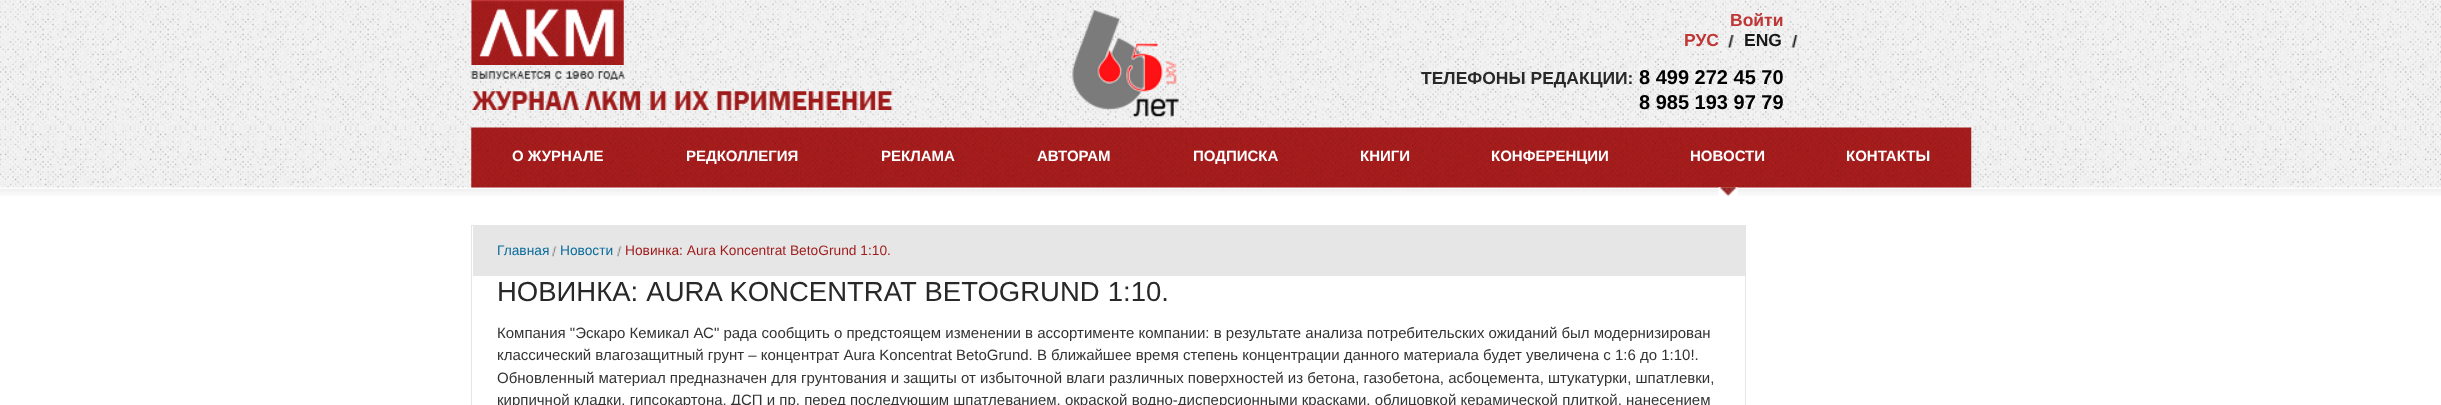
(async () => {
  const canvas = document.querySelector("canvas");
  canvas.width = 2441;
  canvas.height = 405;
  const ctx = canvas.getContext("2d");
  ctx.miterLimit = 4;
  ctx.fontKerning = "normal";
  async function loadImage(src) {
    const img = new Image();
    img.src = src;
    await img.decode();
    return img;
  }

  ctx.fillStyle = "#ffffff";
  ctx.fillRect(0, 0, 2441, 405);
  ctx.drawImage(await loadImage("img/1.png"), 0, 0, 2441, 188);
  ctx.drawImage(await loadImage("img/2.png"), 471, 0, 153, 65);
  ctx.drawImage(await loadImage("img/3.png"), 471, 71, 154, 9);
  ctx.drawImage(await loadImage("img/4.png"), 471, 91, 422, 19);
  ctx.drawImage(await loadImage("img/5.png"), 1072, 10, 107, 107);
  ctx.drawImage(await loadImage("img/6.png"), 1727, 35, 7, 13);
  ctx.drawImage(await loadImage("img/7.png"), 1791, 35, 7, 13);
  ctx.drawImage(await loadImage("img/11.png"), 0, 187, 2441, 9);
  ctx.drawImage(await loadImage("img/8.png"), 471, 127, 1501, 61);
  ctx.drawImage(await loadImage("img/9.png"), 1718, 187, 20, 10);
  ctx.drawImage(await loadImage("img/10.png"), 1718, 187, 20, 10);
  ctx.strokeStyle = "#e6e6e6";
  ctx.strokeRect(471.5, 225.5, 1274, 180);
  ctx.fillStyle = "#e6e6e6";
  ctx.fillRect(473, 226, 1272, 50);
  ctx.drawImage(await loadImage("img/12.png"), 551, 246, 6, 11);
  ctx.drawImage(await loadImage("img/12.png"), 616, 246, 6, 11);
  ctx.font = "bold 17.5px Liberation Sans";
  ctx.fillStyle = "#c03535";
  ctx.fillText("Войти", 1730, 26);
  ctx.fillText("РУС", 1684, 46);
  ctx.fillStyle = "#191919";
  ctx.fillText("ENG", 1744, 46);
  ctx.fillStyle = "#282828";
  ctx.fillText("ТЕЛЕФОНЫ РЕДАКЦИИ:", 1421, 84);
  ctx.font = "bold 20px Liberation Sans";
  ctx.fillStyle = "#000000";
  ctx.fillText("8 499 272 45 70", 1639, 84);
  ctx.fillText("8 985 193 97 79", 1639, 109);
  ctx.font = "bold 15px Liberation Sans";
  ctx.fillStyle = "#ffffff";
  for (const [text, x, y] of [
    ["О ЖУРНАЛЕ", 512, 161],
    ["РЕДКОЛЛЕГИЯ", 686, 161],
    ["РЕКЛАМА", 881, 161],
    ["АВТОРАМ", 1037, 161],
    ["ПОДПИСКА", 1193, 161],
    ["КНИГИ", 1360, 161],
    ["КОНФЕРЕНЦИИ", 1491, 161],
    ["НОВОСТИ", 1690, 161],
    ["КОНТАКТЫ", 1846, 161],
  ]) {
    ctx.fillText(text, x, y);
  }
  ctx.font = "13.75px Liberation Sans";
  ctx.fillStyle = "#0d6c9c";
  ctx.fillText("Главная", 497, 255);
  ctx.fillText("Новости", 560, 255);
  ctx.fillStyle = "#9f1b1b";
  ctx.fillText("Новинка: Aura Koncentrat BetoGrund 1:10.", 625, 255);
  ctx.wordSpacing = "0.5px";
  ctx.font = "27.5px Liberation Sans";
  ctx.fillStyle = "#282828";
  ctx.fillText("НОВИНКА: AURA KONCENTRAT BETOGRUND 1:10.", 497, 301);
  ctx.wordSpacing = "0px";
  ctx.font = "15px Liberation Sans";
  ctx.fillStyle = "#333333";
  for (const [text, x, y] of [
    ["Компания \"Эскаро Кемикал АС\" рада сообщить о предстоящем изменении в ассортименте компании: в результате анализа потребительских ожиданий был модернизирован", 497, 338],
    ["классический влагозащитный грунт – концентрат Aura Koncentrat BetoGrund. В ближайшее время степень концентрации данного материала будет увеличена с 1:6 до 1:10!.", 497, 360],
    ["Обновленный материал предназначен для грунтования и защиты от избыточной влаги различных поверхностей из бетона, газобетона, асбоцемента, штукатурки, шпатлевки,", 497, 383],
    ["кирпичной кладки, гипсокартона, ДСП и пр. перед последующим шпатлеванием, окраской водно-дисперсионными красками, облицовкой керамической плиткой, нанесением", 497, 405],
  ]) {
    ctx.fillText(text, x, y);
  }
})();
